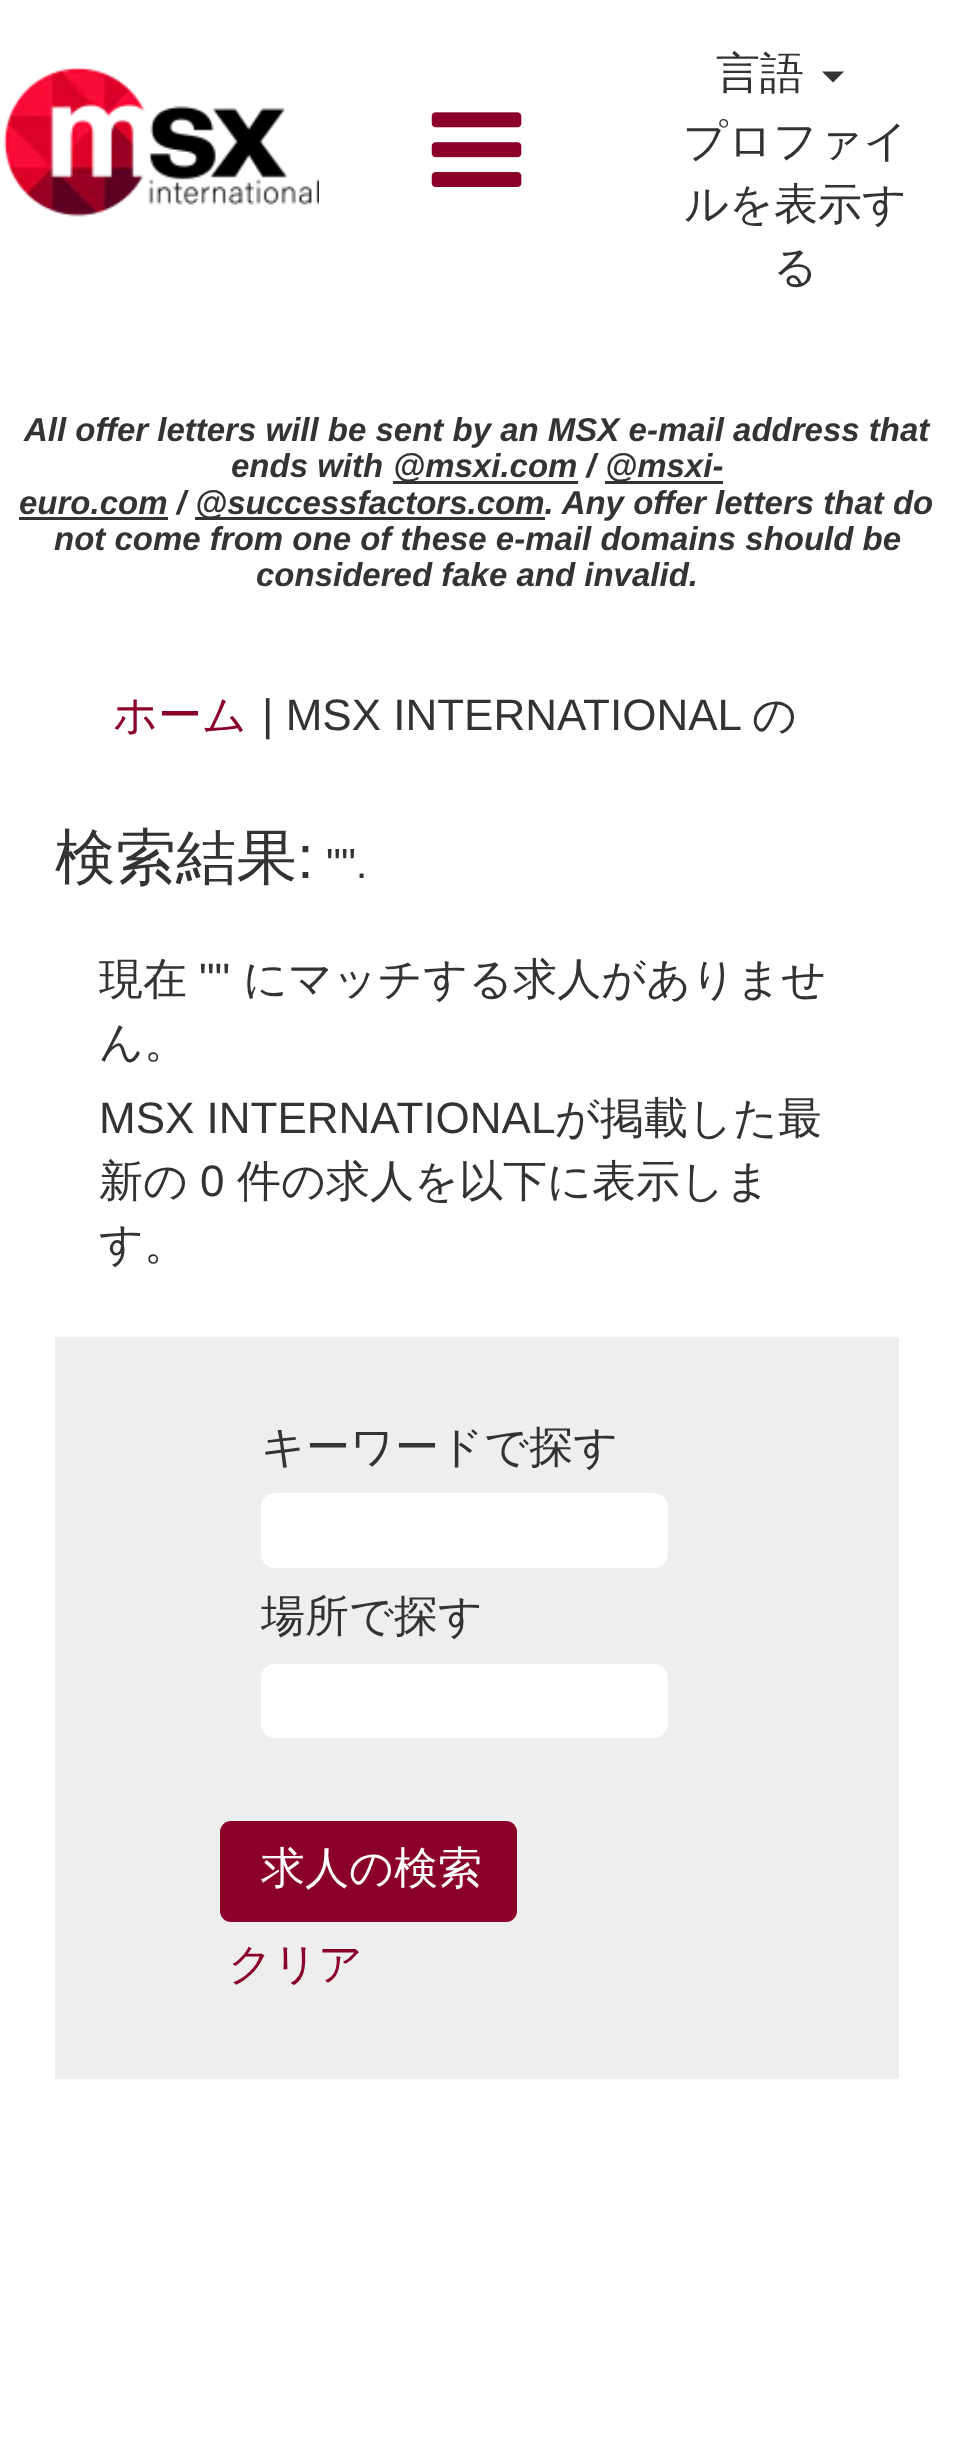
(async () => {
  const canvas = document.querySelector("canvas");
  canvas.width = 954;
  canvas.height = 2441;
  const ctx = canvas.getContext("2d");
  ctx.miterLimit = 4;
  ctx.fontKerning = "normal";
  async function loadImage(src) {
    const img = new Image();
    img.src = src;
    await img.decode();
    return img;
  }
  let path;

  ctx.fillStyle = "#ffffff";
  ctx.fillRect(0, 0, 954, 2441);
  ctx.drawImage(await loadImage("img/1.png"), 3, 67, 316, 150);
  ctx.drawImage(await loadImage("img/2.png"), 431, 112, 91, 75);
  ctx.fillStyle = "#333333";
  path = new Path2D("M822 71.5H844L833 82.5Z");
  ctx.fill(path);
  for (const [x, y, w, h, color] of [
    [393, 481, 185, 3, "#333333"],
    [605, 481, 118, 3, "#333333"],
    [19, 517, 149, 3, "#333333"],
    [195, 517, 350, 3, "#333333"],
    [55, 1337, 844, 742, "#eeeeee"],
  ]) {
    ctx.fillStyle = color;
    ctx.fillRect(x, y, w, h);
  }
  ctx.fillStyle = "#ffffff";
  ctx.beginPath();
  ctx.roundRect(261, 1493, 407, 75, 14);
  ctx.fill();
  ctx.beginPath();
  ctx.roundRect(261, 1664, 407, 74, 14);
  ctx.fill();
  ctx.fillStyle = "#8b0028";
  ctx.beginPath();
  ctx.roundRect(220, 1821, 297, 101, 11);
  ctx.fill();
  ctx.font = "500 44px WenQuanYi Zen Hei";
  ctx.fillStyle = "#333333";
  for (const [text, x, y] of [
    ["言語", 716, 88],
    ["プロファイ", 683, 156],
    ["ルを表示す", 684, 219],
    ["る", 773, 282],
  ]) {
    ctx.fillText(text, x, y);
  }
  ctx.font = "italic bold 33px Liberation Sans";
  for (const [text, x, y] of [
    ["All offer letters will be sent by an MSX e-mail address that", 24, 441],
    ["ends with", 231, 477],
    ["@msxi.com /", 393, 477],
    ["@msxi-", 605, 477],
    ["euro.com /", 19, 514],
    ["@successfactors.com. Any offer letters that do", 195, 514],
    ["not come from one of these e-mail domains should be", 54, 550],
    ["considered fake and invalid.", 256, 586],
  ]) {
    ctx.fillText(text, x, y);
  }
  ctx.font = "500 44px WenQuanYi Zen Hei";
  ctx.fillStyle = "#8b0028";
  ctx.fillText("ホーム", 113, 730);
  ctx.font = "44px Liberation Sans";
  ctx.fillStyle = "#333333";
  ctx.fillText("| MSX INTERNATIONAL", 262, 730);
  ctx.font = "500 44px WenQuanYi Zen Hei";
  ctx.fillText("の", 752, 730);
  ctx.font = "500 60.5px WenQuanYi Zen Hei";
  ctx.fillText("検索結果", 55, 878);
  ctx.font = "60.5px Liberation Sans";
  ctx.fillText(":", 297, 878);
  ctx.font = "42px Liberation Sans";
  ctx.fillText("\"\".", 326, 878);
  ctx.font = "500 44px WenQuanYi Zen Hei";
  ctx.fillText("現在", 99, 994);
  ctx.font = "44px Liberation Sans";
  ctx.fillText("\"\"", 199, 994);
  ctx.font = "500 44px WenQuanYi Zen Hei";
  ctx.fillText("にマッチする求人がありませ", 243, 994);
  ctx.fillText("ん。", 99, 1057);
  ctx.font = "44px Liberation Sans";
  ctx.fillText("MSX INTERNATIONAL", 99, 1133);
  ctx.font = "500 44px WenQuanYi Zen Hei";
  ctx.fillText("が掲載した最", 555, 1133);
  ctx.fillText("新の", 99, 1196);
  ctx.font = "44px Liberation Sans";
  ctx.fillText("0", 200, 1196);
  ctx.font = "500 44px WenQuanYi Zen Hei";
  for (const [text, x, y] of [
    ["件の求人を以下に表示しま", 237, 1196],
    ["す。", 99, 1259],
    ["キーワードで探す", 261, 1462],
    ["場所で探す", 261, 1631],
  ]) {
    ctx.fillText(text, x, y);
  }
  ctx.fillStyle = "#ffffff";
  ctx.fillText("求人の検索", 261, 1883);
  ctx.fillStyle = "#8b0028";
  ctx.fillText("クリア", 228, 1979);
})();
